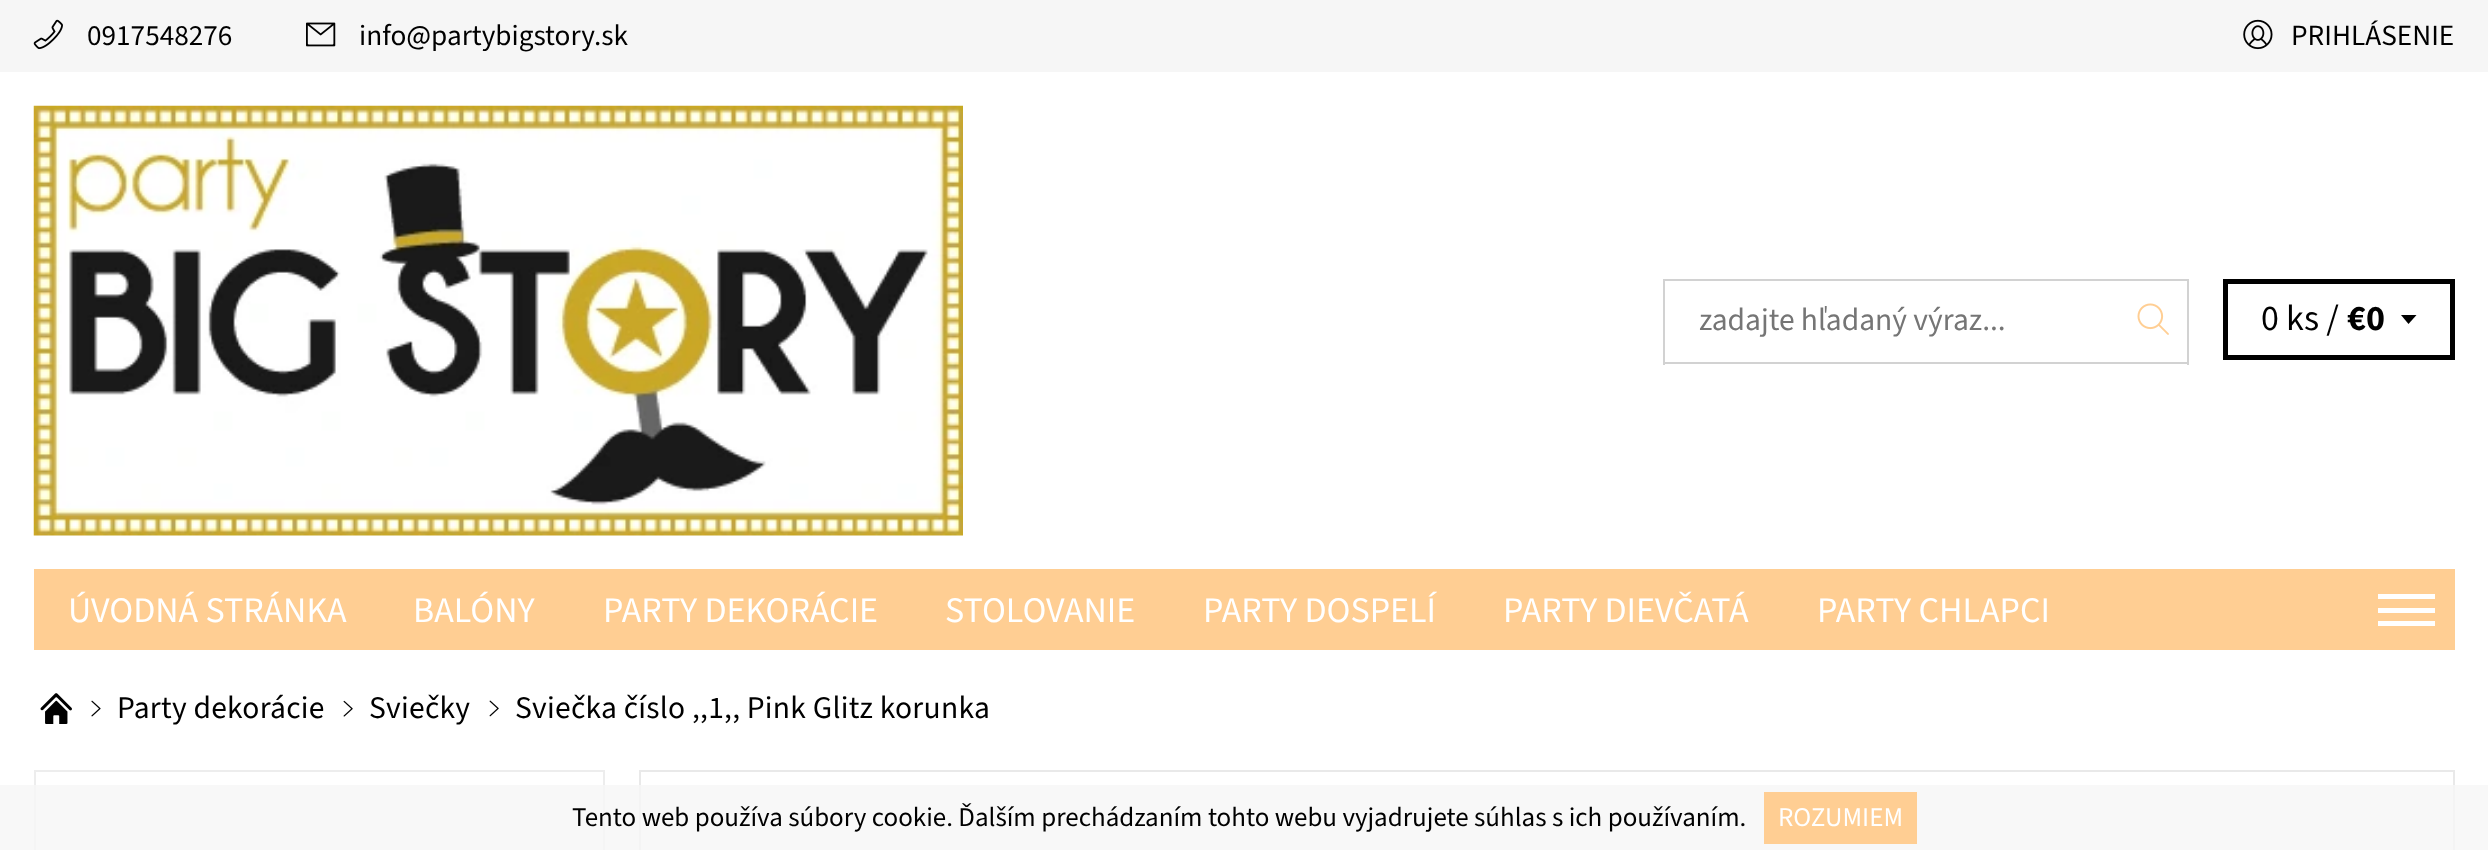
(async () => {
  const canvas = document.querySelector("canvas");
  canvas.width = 2488;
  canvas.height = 850;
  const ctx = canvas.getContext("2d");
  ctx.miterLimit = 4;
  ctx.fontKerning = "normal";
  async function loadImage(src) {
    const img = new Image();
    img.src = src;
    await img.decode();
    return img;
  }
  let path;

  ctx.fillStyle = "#ffffff";
  ctx.fillRect(0, 0, 2488, 850);
  ctx.fillStyle = "#f6f6f6";
  ctx.fillRect(0, 0, 2488, 72);
  ctx.drawImage(await loadImage("img/1.png"), 33, 19, 30, 31);
  ctx.drawImage(await loadImage("img/2.png"), 306, 22, 30, 25);
  ctx.drawImage(await loadImage("img/3.png"), 2243, 19, 30, 31);
  ctx.drawImage(await loadImage("img/4.png"), 33, 105, 930, 431);
  for (const [x, y, w, h, color] of [
    [1663, 279, 526, 2, "#d2d2d2"],
    [1663, 362, 457, 2, "#d2d2d2"],
    [1663, 279, 2, 86, "#d2d2d2"],
    [2187, 279, 2, 86, "#d2d2d2"],
    [2120, 362, 69, 2, "#d2d2d2"],
  ]) {
    ctx.fillStyle = color;
    ctx.fillRect(x, y, w, h);
  }
  ctx.drawImage(await loadImage("img/5.png"), 2137, 303, 32, 32);
  ctx.strokeStyle = "#000000";
  ctx.lineWidth = 5;
  ctx.strokeRect(2225.5, 281.5, 227, 76);
  ctx.fillStyle = "#000000";
  path = new Path2D("M2408.5 315H2416.5L2408.5 324L2401 315Z");
  ctx.fill(path);
  for (const [x, y, w, h, color] of [
    [34, 569, 2421, 81, "#ffce93"],
    [2378, 594, 57, 5, "#ffffff"],
    [2378, 608, 57, 5, "#ffffff"],
    [2378, 621, 57, 5, "#ffffff"],
  ]) {
    ctx.fillStyle = color;
    ctx.fillRect(x, y, w, h);
  }
  ctx.drawImage(await loadImage("img/6.png"), 40, 693, 32, 31);
  ctx.drawImage(await loadImage("img/7.png"), 91, 700, 10, 17);
  ctx.drawImage(await loadImage("img/8.png"), 343, 700, 10, 17);
  ctx.drawImage(await loadImage("img/9.png"), 489, 700, 10, 17);
  ctx.strokeStyle = "#ededed";
  ctx.lineWidth = 2;
  ctx.strokeRect(35, 771, 569, 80);
  ctx.strokeStyle = "#e9e9e9";
  ctx.strokeRect(640, 771, 1814, 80);
  ctx.fillStyle = "rgba(246, 246, 246, 0.8)";
  ctx.fillRect(0, 785, 2488, 65);
  ctx.fillStyle = "#ffce93";
  ctx.fillRect(1764, 792, 153, 52);
  ctx.font = "29.25px 'Source Sans 3'";
  ctx.fillStyle = "#000000";
  for (const [text, x, y] of [
    ["0917548276", 87, 45],
    ["info@partybigstory.sk", 359, 45],
    ["PRIHLÁSENIE", 2291, 45],
  ]) {
    ctx.fillText(text, x, y);
  }
  ctx.font = "31.5px 'Source Sans 3'";
  ctx.fillStyle = "#757575";
  ctx.fillText("zadajte hľadaný výraz...", 1699, 330);
  ctx.font = "36px 'Source Sans 3'";
  ctx.fillStyle = "#000000";
  ctx.fillText("0 ks /", 2261, 330);
  ctx.font = "bold 36px 'Source Sans 3'";
  ctx.fillText("€0", 2347, 330);
  ctx.font = "36px 'Source Sans 3'";
  ctx.fillStyle = "#ffffff";
  for (const [text, x, y] of [
    ["ÚVODNÁ STRÁNKA", 68, 622],
    ["BALÓNY", 413, 622],
    ["PARTY DEKORÁCIE", 603, 622],
    ["STOLOVANIE", 945, 622],
    ["PARTY DOSPELÍ", 1203, 622],
    ["PARTY DIEVČATÁ", 1503, 622],
    ["PARTY CHLAPCI", 1817, 622],
  ]) {
    ctx.fillText(text, x, y);
  }
  ctx.letterSpacing = "0.25px";
  ctx.font = "31.5px 'Source Sans 3'";
  ctx.fillStyle = "#000000";
  for (const [text, x, y] of [
    ["Party dekorácie", 117, 718],
    ["Sviečky", 369, 718],
    ["Sviečka číslo ,,1,, Pink Glitz korunka", 515, 718],
  ]) {
    ctx.fillText(text, x, y);
  }
  ctx.letterSpacing = "0px";
  ctx.font = "27px 'Source Sans 3'";
  ctx.fillText("Tento web používa súbory cookie. Ďalším prechádzaním tohto webu vyjadrujete súhlas s ich používaním.", 572, 826);
  ctx.fillStyle = "#ffffff";
  ctx.fillText("ROZUMIEM", 1778, 826);
})();
